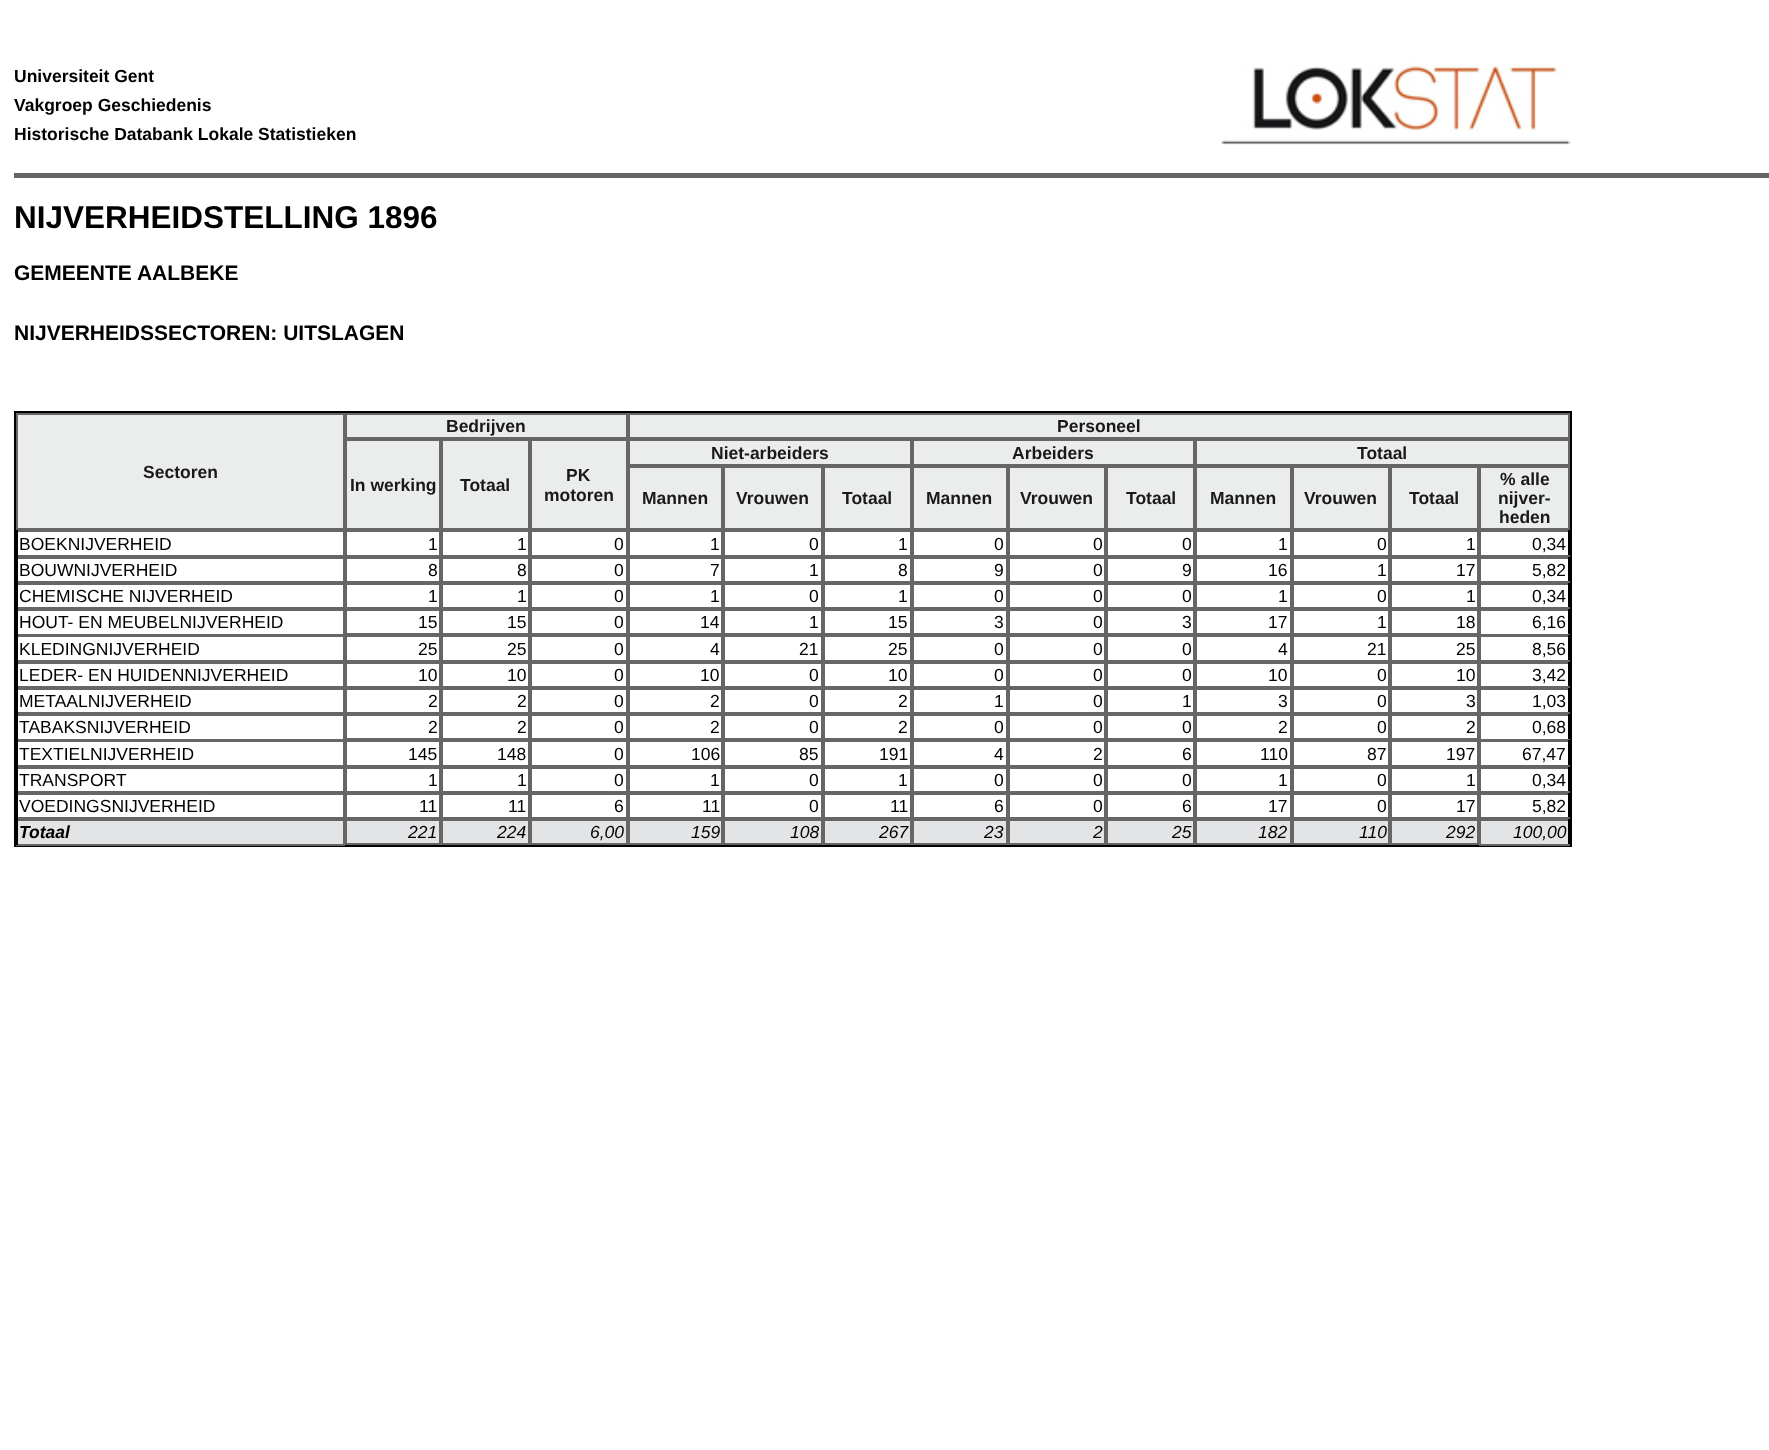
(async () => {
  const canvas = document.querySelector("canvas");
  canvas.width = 1769;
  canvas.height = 1450;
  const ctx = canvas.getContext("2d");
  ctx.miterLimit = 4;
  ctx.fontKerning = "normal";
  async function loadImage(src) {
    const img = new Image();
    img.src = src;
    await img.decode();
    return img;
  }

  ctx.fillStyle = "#ffffff";
  ctx.fillRect(0, 0, 1769, 1450);
  ctx.fillStyle = "#666666";
  ctx.fillRect(14, 173, 1755, 5);
  ctx.drawImage(await loadImage("img/1.png"), 1221, 63, 350, 82);
  ctx.strokeStyle = "#000000";
  ctx.lineWidth = 2;
  ctx.strokeRect(15, 412, 1556, 434);
  ctx.fillStyle = "#ebeded";
  ctx.beginPath();
  ctx.rect(346, 414, 281, 24);
  ctx.fill();
  ctx.strokeStyle = "#666666";
  ctx.stroke();
  ctx.beginPath();
  ctx.rect(629, 414, 940, 24);
  ctx.fill();
  ctx.stroke();
  ctx.beginPath();
  ctx.rect(17, 414, 327, 115);
  ctx.fill();
  ctx.stroke();
  ctx.beginPath();
  ctx.rect(629, 440, 282, 25);
  ctx.fill();
  ctx.stroke();
  ctx.beginPath();
  ctx.rect(913, 440, 281, 25);
  ctx.fill();
  ctx.stroke();
  ctx.beginPath();
  ctx.rect(1196, 440, 373, 25);
  ctx.fill();
  ctx.stroke();
  ctx.beginPath();
  ctx.rect(346, 440, 94, 89);
  ctx.fill();
  ctx.stroke();
  ctx.beginPath();
  ctx.rect(442, 440, 87, 89);
  ctx.fill();
  ctx.stroke();
  ctx.beginPath();
  ctx.rect(531, 440, 96, 89);
  ctx.fill();
  ctx.stroke();
  ctx.beginPath();
  ctx.rect(629, 467, 93, 62);
  ctx.fill();
  ctx.stroke();
  ctx.beginPath();
  ctx.rect(724, 467, 98, 62);
  ctx.fill();
  ctx.stroke();
  ctx.beginPath();
  ctx.rect(824, 467, 87, 62);
  ctx.fill();
  ctx.stroke();
  ctx.beginPath();
  ctx.rect(913, 467, 94, 62);
  ctx.fill();
  ctx.stroke();
  ctx.beginPath();
  ctx.rect(1009, 467, 96, 62);
  ctx.fill();
  ctx.stroke();
  ctx.beginPath();
  ctx.rect(1107, 467, 87, 62);
  ctx.fill();
  ctx.stroke();
  ctx.beginPath();
  ctx.rect(1196, 467, 95, 62);
  ctx.fill();
  ctx.stroke();
  ctx.beginPath();
  ctx.rect(1293, 467, 96, 62);
  ctx.fill();
  ctx.stroke();
  ctx.beginPath();
  ctx.rect(1391, 467, 87, 62);
  ctx.fill();
  ctx.stroke();
  ctx.beginPath();
  ctx.rect(1480, 467, 89, 62);
  ctx.fill();
  ctx.stroke();
  for (const [x, y, w, h, color] of [
    [16, 530, 329, 2, "#666666"],
    [343, 530, 2, 27, "#666666"],
    [16, 555, 329, 4, "#666666"],
    [16, 530, 2, 27, "#000000"],
  ]) {
    ctx.fillStyle = color;
    ctx.fillRect(x, y, w, h);
  }
  ctx.strokeRect(346, 531, 94, 25);
  ctx.strokeRect(442, 531, 87, 25);
  ctx.strokeRect(531, 531, 96, 25);
  ctx.strokeRect(629, 531, 93, 25);
  ctx.strokeRect(724, 531, 98, 25);
  ctx.strokeRect(824, 531, 87, 25);
  ctx.strokeRect(913, 531, 94, 25);
  ctx.strokeRect(1009, 531, 96, 25);
  ctx.strokeRect(1107, 531, 87, 25);
  ctx.strokeRect(1196, 531, 95, 25);
  ctx.strokeRect(1293, 531, 96, 25);
  ctx.strokeRect(1391, 531, 87, 25);
  for (const [x, y, w, h, color] of [
    [1479, 530, 91, 2, "#666666"],
    [1568, 530, 2, 27, "#000000"],
    [1479, 555, 91, 4, "#666666"],
    [1479, 530, 2, 27, "#666666"],
    [343, 557, 2, 26, "#666666"],
    [16, 581, 329, 4, "#666666"],
    [16, 557, 2, 26, "#000000"],
  ]) {
    ctx.fillStyle = color;
    ctx.fillRect(x, y, w, h);
  }
  ctx.strokeRect(346, 558, 94, 24);
  ctx.strokeRect(442, 558, 87, 24);
  ctx.strokeRect(531, 558, 96, 24);
  ctx.strokeRect(629, 558, 93, 24);
  ctx.strokeRect(724, 558, 98, 24);
  ctx.strokeRect(824, 558, 87, 24);
  ctx.strokeRect(913, 558, 94, 24);
  ctx.strokeRect(1009, 558, 96, 24);
  ctx.strokeRect(1107, 558, 87, 24);
  ctx.strokeRect(1196, 558, 95, 24);
  ctx.strokeRect(1293, 558, 96, 24);
  ctx.strokeRect(1391, 558, 87, 24);
  for (const [x, y, w, h, color] of [
    [1568, 557, 2, 26, "#000000"],
    [1479, 581, 91, 4, "#666666"],
    [1479, 557, 2, 26, "#666666"],
    [343, 583, 2, 26, "#666666"],
    [16, 607, 329, 4, "#666666"],
    [16, 583, 2, 26, "#000000"],
  ]) {
    ctx.fillStyle = color;
    ctx.fillRect(x, y, w, h);
  }
  ctx.strokeRect(346, 584, 94, 24);
  ctx.strokeRect(442, 584, 87, 24);
  ctx.strokeRect(531, 584, 96, 24);
  ctx.strokeRect(629, 584, 93, 24);
  ctx.strokeRect(724, 584, 98, 24);
  ctx.strokeRect(824, 584, 87, 24);
  ctx.strokeRect(913, 584, 94, 24);
  ctx.strokeRect(1009, 584, 96, 24);
  ctx.strokeRect(1107, 584, 87, 24);
  ctx.strokeRect(1196, 584, 95, 24);
  ctx.strokeRect(1293, 584, 96, 24);
  ctx.strokeRect(1391, 584, 87, 24);
  for (const [x, y, w, h, color] of [
    [1568, 583, 2, 26, "#000000"],
    [1479, 607, 91, 4, "#666666"],
    [1479, 583, 2, 26, "#666666"],
    [343, 609, 2, 26, "#666666"],
    [16, 634, 329, 3, "#666666"],
    [16, 609, 2, 26, "#000000"],
  ]) {
    ctx.fillStyle = color;
    ctx.fillRect(x, y, w, h);
  }
  ctx.strokeRect(346, 610, 94, 24);
  ctx.strokeRect(442, 610, 87, 24);
  ctx.strokeRect(531, 610, 96, 24);
  ctx.strokeRect(629, 610, 93, 24);
  ctx.strokeRect(724, 610, 98, 24);
  ctx.strokeRect(824, 610, 87, 24);
  ctx.strokeRect(913, 610, 94, 24);
  ctx.strokeRect(1009, 610, 96, 24);
  ctx.strokeRect(1107, 610, 87, 24);
  ctx.strokeRect(1196, 610, 95, 24);
  ctx.strokeRect(1293, 610, 96, 24);
  ctx.strokeRect(1391, 610, 87, 24);
  for (const [x, y, w, h, color] of [
    [1568, 609, 2, 26, "#000000"],
    [1479, 634, 91, 3, "#666666"],
    [1479, 609, 2, 26, "#666666"],
    [343, 635, 2, 27, "#666666"],
    [16, 660, 329, 4, "#666666"],
    [16, 635, 2, 27, "#000000"],
  ]) {
    ctx.fillStyle = color;
    ctx.fillRect(x, y, w, h);
  }
  ctx.strokeRect(346, 636, 94, 25);
  ctx.strokeRect(442, 636, 87, 25);
  ctx.strokeRect(531, 636, 96, 25);
  ctx.strokeRect(629, 636, 93, 25);
  ctx.strokeRect(724, 636, 98, 25);
  ctx.strokeRect(824, 636, 87, 25);
  ctx.strokeRect(913, 636, 94, 25);
  ctx.strokeRect(1009, 636, 96, 25);
  ctx.strokeRect(1107, 636, 87, 25);
  ctx.strokeRect(1196, 636, 95, 25);
  ctx.strokeRect(1293, 636, 96, 25);
  ctx.strokeRect(1391, 636, 87, 25);
  for (const [x, y, w, h, color] of [
    [1568, 635, 2, 27, "#000000"],
    [1479, 660, 91, 4, "#666666"],
    [1479, 635, 2, 27, "#666666"],
    [343, 662, 2, 26, "#666666"],
    [16, 686, 329, 4, "#666666"],
    [16, 662, 2, 26, "#000000"],
  ]) {
    ctx.fillStyle = color;
    ctx.fillRect(x, y, w, h);
  }
  ctx.strokeRect(346, 663, 94, 24);
  ctx.strokeRect(442, 663, 87, 24);
  ctx.strokeRect(531, 663, 96, 24);
  ctx.strokeRect(629, 663, 93, 24);
  ctx.strokeRect(724, 663, 98, 24);
  ctx.strokeRect(824, 663, 87, 24);
  ctx.strokeRect(913, 663, 94, 24);
  ctx.strokeRect(1009, 663, 96, 24);
  ctx.strokeRect(1107, 663, 87, 24);
  ctx.strokeRect(1196, 663, 95, 24);
  ctx.strokeRect(1293, 663, 96, 24);
  ctx.strokeRect(1391, 663, 87, 24);
  for (const [x, y, w, h, color] of [
    [1568, 662, 2, 26, "#000000"],
    [1479, 686, 91, 4, "#666666"],
    [1479, 662, 2, 26, "#666666"],
    [343, 688, 2, 26, "#666666"],
    [16, 712, 329, 4, "#666666"],
    [16, 688, 2, 26, "#000000"],
  ]) {
    ctx.fillStyle = color;
    ctx.fillRect(x, y, w, h);
  }
  ctx.strokeRect(346, 689, 94, 24);
  ctx.strokeRect(442, 689, 87, 24);
  ctx.strokeRect(531, 689, 96, 24);
  ctx.strokeRect(629, 689, 93, 24);
  ctx.strokeRect(724, 689, 98, 24);
  ctx.strokeRect(824, 689, 87, 24);
  ctx.strokeRect(913, 689, 94, 24);
  ctx.strokeRect(1009, 689, 96, 24);
  ctx.strokeRect(1107, 689, 87, 24);
  ctx.strokeRect(1196, 689, 95, 24);
  ctx.strokeRect(1293, 689, 96, 24);
  ctx.strokeRect(1391, 689, 87, 24);
  for (const [x, y, w, h, color] of [
    [1568, 688, 2, 26, "#000000"],
    [1479, 712, 91, 4, "#666666"],
    [1479, 688, 2, 26, "#666666"],
    [343, 714, 2, 26, "#666666"],
    [16, 739, 329, 3, "#666666"],
    [16, 714, 2, 26, "#000000"],
  ]) {
    ctx.fillStyle = color;
    ctx.fillRect(x, y, w, h);
  }
  ctx.strokeRect(346, 715, 94, 24);
  ctx.strokeRect(442, 715, 87, 24);
  ctx.strokeRect(531, 715, 96, 24);
  ctx.strokeRect(629, 715, 93, 24);
  ctx.strokeRect(724, 715, 98, 24);
  ctx.strokeRect(824, 715, 87, 24);
  ctx.strokeRect(913, 715, 94, 24);
  ctx.strokeRect(1009, 715, 96, 24);
  ctx.strokeRect(1107, 715, 87, 24);
  ctx.strokeRect(1196, 715, 95, 24);
  ctx.strokeRect(1293, 715, 96, 24);
  ctx.strokeRect(1391, 715, 87, 24);
  for (const [x, y, w, h, color] of [
    [1568, 714, 2, 26, "#000000"],
    [1479, 739, 91, 3, "#666666"],
    [1479, 714, 2, 26, "#666666"],
    [343, 740, 2, 27, "#666666"],
    [16, 765, 329, 4, "#666666"],
    [16, 740, 2, 27, "#000000"],
  ]) {
    ctx.fillStyle = color;
    ctx.fillRect(x, y, w, h);
  }
  ctx.strokeRect(346, 741, 94, 25);
  ctx.strokeRect(442, 741, 87, 25);
  ctx.strokeRect(531, 741, 96, 25);
  ctx.strokeRect(629, 741, 93, 25);
  ctx.strokeRect(724, 741, 98, 25);
  ctx.strokeRect(824, 741, 87, 25);
  ctx.strokeRect(913, 741, 94, 25);
  ctx.strokeRect(1009, 741, 96, 25);
  ctx.strokeRect(1107, 741, 87, 25);
  ctx.strokeRect(1196, 741, 95, 25);
  ctx.strokeRect(1293, 741, 96, 25);
  ctx.strokeRect(1391, 741, 87, 25);
  for (const [x, y, w, h, color] of [
    [1568, 740, 2, 27, "#000000"],
    [1479, 765, 91, 4, "#666666"],
    [1479, 740, 2, 27, "#666666"],
    [343, 767, 2, 26, "#666666"],
    [16, 791, 329, 4, "#666666"],
    [16, 767, 2, 26, "#000000"],
  ]) {
    ctx.fillStyle = color;
    ctx.fillRect(x, y, w, h);
  }
  ctx.strokeRect(346, 768, 94, 24);
  ctx.strokeRect(442, 768, 87, 24);
  ctx.strokeRect(531, 768, 96, 24);
  ctx.strokeRect(629, 768, 93, 24);
  ctx.strokeRect(724, 768, 98, 24);
  ctx.strokeRect(824, 768, 87, 24);
  ctx.strokeRect(913, 768, 94, 24);
  ctx.strokeRect(1009, 768, 96, 24);
  ctx.strokeRect(1107, 768, 87, 24);
  ctx.strokeRect(1196, 768, 95, 24);
  ctx.strokeRect(1293, 768, 96, 24);
  ctx.strokeRect(1391, 768, 87, 24);
  for (const [x, y, w, h, color] of [
    [1568, 767, 2, 26, "#000000"],
    [1479, 791, 91, 4, "#666666"],
    [1479, 767, 2, 26, "#666666"],
    [343, 793, 2, 26, "#666666"],
    [16, 817, 329, 4, "#666666"],
    [16, 793, 2, 26, "#000000"],
  ]) {
    ctx.fillStyle = color;
    ctx.fillRect(x, y, w, h);
  }
  ctx.strokeRect(346, 794, 94, 24);
  ctx.strokeRect(442, 794, 87, 24);
  ctx.strokeRect(531, 794, 96, 24);
  ctx.strokeRect(629, 794, 93, 24);
  ctx.strokeRect(724, 794, 98, 24);
  ctx.strokeRect(824, 794, 87, 24);
  ctx.strokeRect(913, 794, 94, 24);
  ctx.strokeRect(1009, 794, 96, 24);
  ctx.strokeRect(1107, 794, 87, 24);
  ctx.strokeRect(1196, 794, 95, 24);
  ctx.strokeRect(1293, 794, 96, 24);
  ctx.strokeRect(1391, 794, 87, 24);
  for (const [x, y, w, h, color] of [
    [1568, 793, 2, 26, "#000000"],
    [1479, 817, 91, 4, "#666666"],
    [1479, 793, 2, 26, "#666666"],
    [18, 821, 325, 23, "#e3e4e6"],
    [343, 819, 2, 26, "#666666"],
    [16, 844, 329, 2, "#666666"],
    [16, 819, 2, 26, "#000000"],
  ]) {
    ctx.fillStyle = color;
    ctx.fillRect(x, y, w, h);
  }
  ctx.fillStyle = "#e3e4e6";
  ctx.beginPath();
  ctx.rect(346, 820, 94, 24);
  ctx.fill();
  ctx.stroke();
  ctx.beginPath();
  ctx.rect(442, 820, 87, 24);
  ctx.fill();
  ctx.stroke();
  ctx.beginPath();
  ctx.rect(531, 820, 96, 24);
  ctx.fill();
  ctx.stroke();
  ctx.beginPath();
  ctx.rect(629, 820, 93, 24);
  ctx.fill();
  ctx.stroke();
  ctx.beginPath();
  ctx.rect(724, 820, 98, 24);
  ctx.fill();
  ctx.stroke();
  ctx.beginPath();
  ctx.rect(824, 820, 87, 24);
  ctx.fill();
  ctx.stroke();
  ctx.beginPath();
  ctx.rect(913, 820, 94, 24);
  ctx.fill();
  ctx.stroke();
  ctx.beginPath();
  ctx.rect(1009, 820, 96, 24);
  ctx.fill();
  ctx.stroke();
  ctx.beginPath();
  ctx.rect(1107, 820, 87, 24);
  ctx.fill();
  ctx.stroke();
  ctx.beginPath();
  ctx.rect(1196, 820, 95, 24);
  ctx.fill();
  ctx.stroke();
  ctx.beginPath();
  ctx.rect(1293, 820, 96, 24);
  ctx.fill();
  ctx.stroke();
  ctx.beginPath();
  ctx.rect(1391, 820, 87, 24);
  ctx.fill();
  ctx.stroke();
  for (const [x, y, w, h, color] of [
    [1481, 821, 87, 23, "#e3e4e6"],
    [1568, 819, 2, 26, "#000000"],
    [1479, 844, 91, 2, "#666666"],
    [1479, 819, 2, 26, "#666666"],
  ]) {
    ctx.fillStyle = color;
    ctx.fillRect(x, y, w, h);
  }
  ctx.font = "bold 17.5px Liberation Sans";
  ctx.fillStyle = "#000000";
  for (const [text, x, y] of [
    ["Universiteit Gent", 14, 82],
    ["Vakgroep Geschiedenis", 14, 111],
    ["Historische Databank Lokale Statistieken", 14, 140],
  ]) {
    ctx.fillText(text, x, y);
  }
  ctx.font = "bold 31.5px Liberation Sans";
  ctx.fillText("NIJVERHEIDSTELLING 1896", 14, 228);
  ctx.font = "bold 21px Liberation Sans";
  ctx.fillText("GEMEENTE AALBEKE", 14, 280);
  ctx.fillText("NIJVERHEIDSSECTOREN: UITSLAGEN", 14, 340);
  ctx.font = "bold 17.5px Liberation Sans";
  ctx.fillStyle = "#19191b";
  for (const [text, x, y] of [
    ["Bedrijven", 446, 432],
    ["Personeel", 1057, 432],
    ["Sectoren", 143, 478],
    ["Niet-arbeiders", 711, 459],
    ["Arbeiders", 1012, 459],
    ["Totaal", 1357, 459],
    ["In werking", 350, 491],
    ["Totaal", 460, 491],
    ["PK", 566, 481],
    ["motoren", 544, 501],
    ["Mannen", 642, 504],
    ["Vrouwen", 736, 504],
    ["Totaal", 842, 504],
    ["Mannen", 926, 504],
    ["Vrouwen", 1020, 504],
    ["Totaal", 1126, 504],
    ["Mannen", 1210, 504],
    ["Vrouwen", 1304, 504],
    ["Totaal", 1409, 504],
    ["% alle", 1500, 485],
    ["nijver-", 1498, 504],
    ["heden", 1499, 523],
  ]) {
    ctx.fillText(text, x, y);
  }
  ctx.font = "17.5px Liberation Sans";
  ctx.fillStyle = "#000000";
  for (const [text, x, y] of [
    ["BOEKNIJVERHEID", 19, 550],
    ["1", 428, 550],
    ["1", 517, 550],
    ["0", 614, 550],
    ["1", 710, 550],
    ["0", 809, 550],
    ["1", 898, 550],
    ["0", 994, 550],
    ["0", 1093, 550],
    ["0", 1182, 550],
    ["1", 1278, 550],
    ["0", 1377, 550],
    ["1", 1466, 550],
    ["0,34", 1532, 550],
    ["BOUWNIJVERHEID", 19, 576],
    ["8", 428, 576],
    ["8", 517, 576],
    ["0", 614, 576],
    ["7", 710, 576],
    ["1", 809, 576],
    ["8", 898, 576],
    ["9", 994, 576],
    ["0", 1093, 576],
    ["9", 1182, 576],
    ["16", 1268, 576],
    ["1", 1377, 576],
    ["17", 1456, 576],
    ["5,82", 1532, 576],
    ["CHEMISCHE NIJVERHEID", 19, 602],
    ["1", 428, 602],
    ["1", 517, 602],
    ["0", 614, 602],
    ["1", 710, 602],
    ["0", 809, 602],
    ["1", 898, 602],
    ["0", 994, 602],
    ["0", 1093, 602],
    ["0", 1182, 602],
    ["1", 1278, 602],
    ["0", 1377, 602],
    ["1", 1466, 602],
    ["0,34", 1532, 602],
    ["HOUT- EN MEUBELNIJVERHEID", 19, 628],
    ["15", 418, 628],
    ["15", 507, 628],
    ["0", 614, 628],
    ["14", 700, 628],
    ["1", 809, 628],
    ["15", 888, 628],
    ["3", 994, 628],
    ["0", 1093, 628],
    ["3", 1182, 628],
    ["17", 1268, 628],
    ["1", 1377, 628],
    ["18", 1456, 628],
    ["6,16", 1532, 628],
    ["KLEDINGNIJVERHEID", 19, 655],
    ["25", 418, 655],
    ["25", 507, 655],
    ["0", 614, 655],
    ["4", 710, 655],
    ["21", 799, 655],
    ["25", 888, 655],
    ["0", 994, 655],
    ["0", 1093, 655],
    ["0", 1182, 655],
    ["4", 1278, 655],
    ["21", 1367, 655],
    ["25", 1456, 655],
    ["8,56", 1532, 655],
    ["LEDER- EN HUIDENNIJVERHEID", 19, 681],
    ["10", 418, 681],
    ["10", 507, 681],
    ["0", 614, 681],
    ["10", 700, 681],
    ["0", 809, 681],
    ["10", 888, 681],
    ["0", 994, 681],
    ["0", 1093, 681],
    ["0", 1182, 681],
    ["10", 1268, 681],
    ["0", 1377, 681],
    ["10", 1456, 681],
    ["3,42", 1532, 681],
    ["METAALNIJVERHEID", 19, 707],
    ["2", 428, 707],
    ["2", 517, 707],
    ["0", 614, 707],
    ["2", 710, 707],
    ["0", 809, 707],
    ["2", 898, 707],
    ["1", 994, 707],
    ["0", 1093, 707],
    ["1", 1182, 707],
    ["3", 1278, 707],
    ["0", 1377, 707],
    ["3", 1466, 707],
    ["1,03", 1532, 707],
    ["TABAKSNIJVERHEID", 19, 733],
    ["2", 428, 733],
    ["2", 517, 733],
    ["0", 614, 733],
    ["2", 710, 733],
    ["0", 809, 733],
    ["2", 898, 733],
    ["0", 994, 733],
    ["0", 1093, 733],
    ["0", 1182, 733],
    ["2", 1278, 733],
    ["0", 1377, 733],
    ["2", 1466, 733],
    ["0,68", 1532, 733],
    ["TEXTIELNIJVERHEID", 19, 760],
    ["145", 408, 760],
    ["148", 497, 760],
    ["0", 614, 760],
    ["106", 691, 760],
    ["85", 799, 760],
    ["191", 879, 760],
    ["4", 994, 760],
    ["2", 1093, 760],
    ["6", 1182, 760],
    ["110", 1260, 760],
    ["87", 1367, 760],
    ["197", 1446, 760],
    ["67,47", 1522, 760],
    ["TRANSPORT", 19, 786],
    ["1", 428, 786],
    ["1", 517, 786],
    ["0", 614, 786],
    ["1", 710, 786],
    ["0", 809, 786],
    ["1", 898, 786],
    ["0", 994, 786],
    ["0", 1093, 786],
    ["0", 1182, 786],
    ["1", 1278, 786],
    ["0", 1377, 786],
    ["1", 1466, 786],
    ["0,34", 1532, 786],
    ["VOEDINGSNIJVERHEID", 19, 812],
    ["11", 419, 812],
    ["11", 508, 812],
    ["6", 614, 812],
    ["11", 702, 812],
    ["0", 809, 812],
    ["11", 890, 812],
    ["6", 994, 812],
    ["0", 1093, 812],
    ["6", 1182, 812],
    ["17", 1268, 812],
    ["0", 1377, 812],
    ["17", 1456, 812],
    ["5,82", 1532, 812],
  ]) {
    ctx.fillText(text, x, y);
  }
  ctx.font = "italic bold 17.5px Liberation Sans";
  ctx.fillText("Totaal", 19, 838);
  ctx.font = "italic 17.5px Liberation Sans";
  for (const [text, x, y] of [
    ["221", 408, 838],
    ["224", 497, 838],
    ["6,00", 590, 838],
    ["159", 691, 838],
    ["108", 790, 838],
    ["267", 879, 838],
    ["23", 984, 838],
    ["2", 1093, 838],
    ["25", 1172, 838],
    ["182", 1258, 838],
    ["110", 1359, 838],
    ["292", 1446, 838],
    ["100,00", 1513, 838],
  ]) {
    ctx.fillText(text, x, y);
  }
})();
